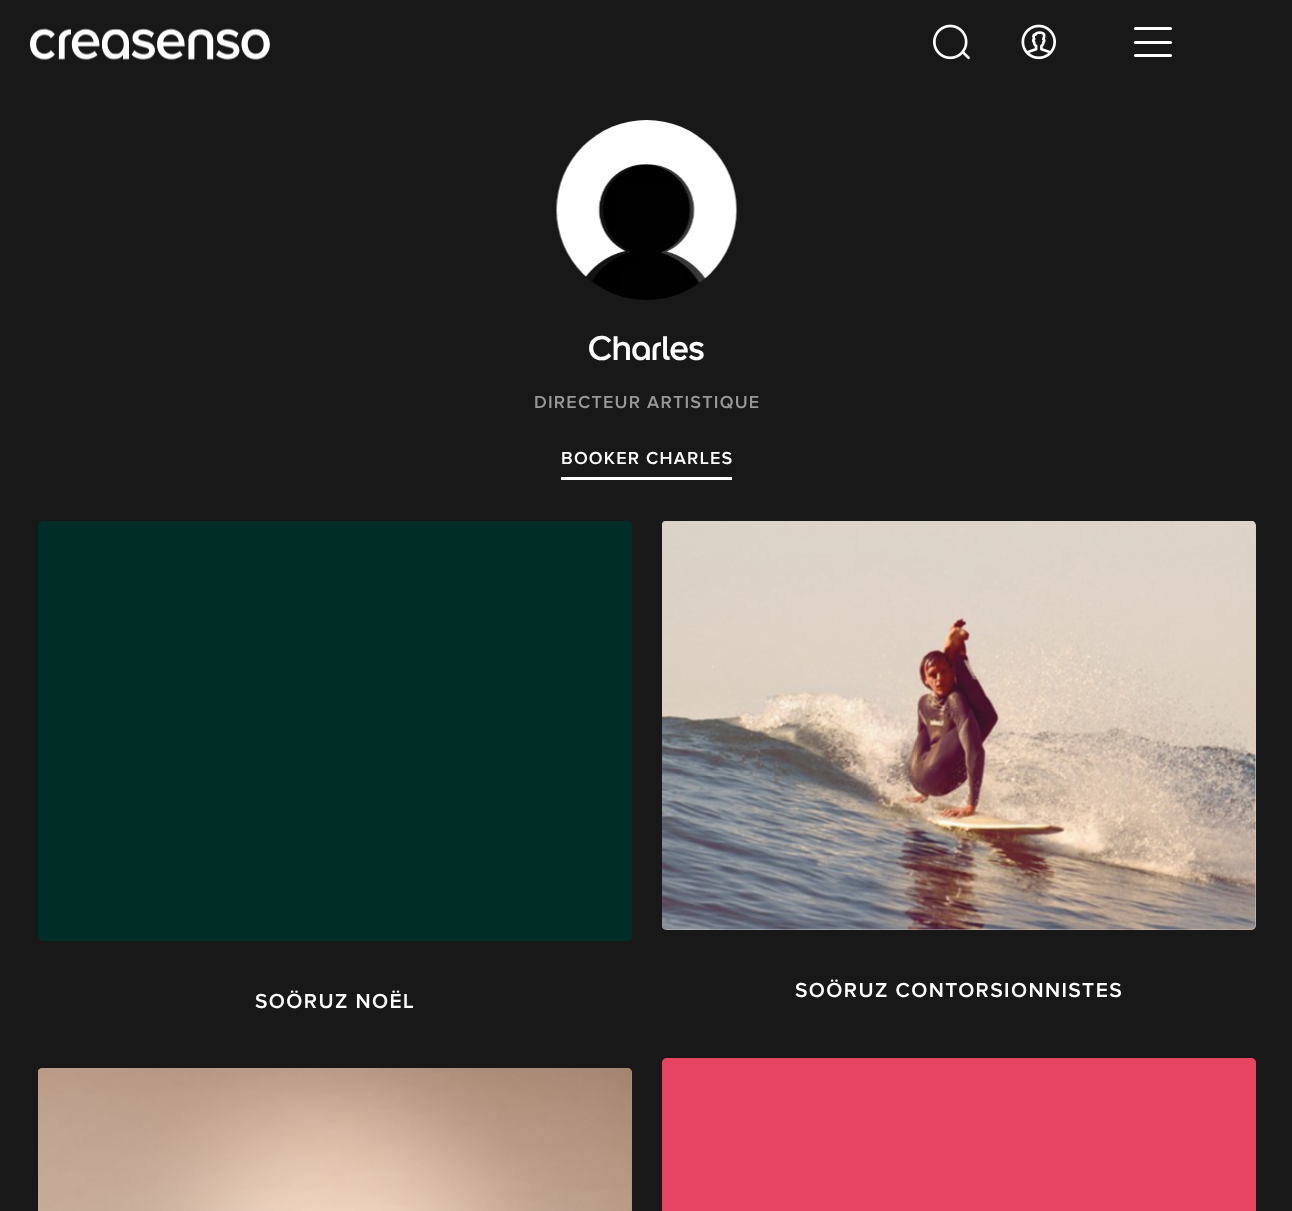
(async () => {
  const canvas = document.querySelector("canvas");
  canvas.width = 1292;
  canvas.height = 1211;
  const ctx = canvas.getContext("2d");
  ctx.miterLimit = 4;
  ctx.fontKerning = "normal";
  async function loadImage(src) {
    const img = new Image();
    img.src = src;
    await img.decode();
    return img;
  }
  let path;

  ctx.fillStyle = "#181818";
  ctx.fillRect(0, 0, 1292, 1211);
  ctx.drawImage(await loadImage("img/1.png"), 30, 28, 240, 32);
  ctx.drawImage(await loadImage("img/2.png"), 933, 24, 37, 36);
  ctx.drawImage(await loadImage("img/3.png"), 1021, 24, 35, 36);
  ctx.fillStyle = "#ffffff";
  ctx.beginPath();
  ctx.roundRect(1134, 27, 38, 3, 1.5);
  ctx.fill();
  ctx.beginPath();
  ctx.roundRect(1134, 41, 38, 3, 1.5);
  ctx.fill();
  ctx.beginPath();
  ctx.roundRect(1134, 54, 38, 3, 1.5);
  ctx.fill();
  ctx.drawImage(await loadImage("img/4.png"), 556, 120, 181, 180);
  ctx.fillRect(561, 477, 171, 3);
  ctx.fillStyle = "#002d26";
  ctx.beginPath();
  ctx.roundRect(38, 521, 594, 420, 5);
  ctx.fill();
  ctx.fillStyle = "#dfd3c5";
  ctx.beginPath();
  ctx.roundRect(662, 521, 594, 409, 5);
  ctx.fill();
  ctx.drawImage(await loadImage("img/5.png"), 662, 521, 594, 409);
  ctx.fillStyle = "#d39914";
  path = new Path2D("M43 1068H627C630 1068 632 1070 632 1073V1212H38V1073C38 1070 40 1068 43 1068Z");
  ctx.fill(path);
  ctx.drawImage(await loadImage("img/6.png"), 38, 1068, 594, 143);
  ctx.fillStyle = "#e74461";
  path = new Path2D("M667 1058H1251C1254 1058 1256 1060 1256 1063V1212H662V1063C662 1060 664 1058 667 1058Z");
  ctx.fill(path);
  ctx.font = "36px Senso";
  ctx.fillStyle = "#ffffff";
  ctx.fillText("Charles", 588, 360);
  ctx.letterSpacing = "1.2px";
  ctx.font = "600 18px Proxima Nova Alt";
  ctx.fillStyle = "#989898";
  ctx.fillText("DIRECTEUR ARTISTIQUE", 534, 408);
  ctx.fillStyle = "#ffffff";
  ctx.fillText("BOOKER CHARLES", 561, 464);
  ctx.letterSpacing = "1.4px";
  ctx.font = "600 21px Proxima Nova Alt";
  ctx.fillText("SOÖRUZ NOËL", 255, 1008);
  ctx.fillText("SOÖRUZ CONTORSIONNISTES", 795, 997);
})();
